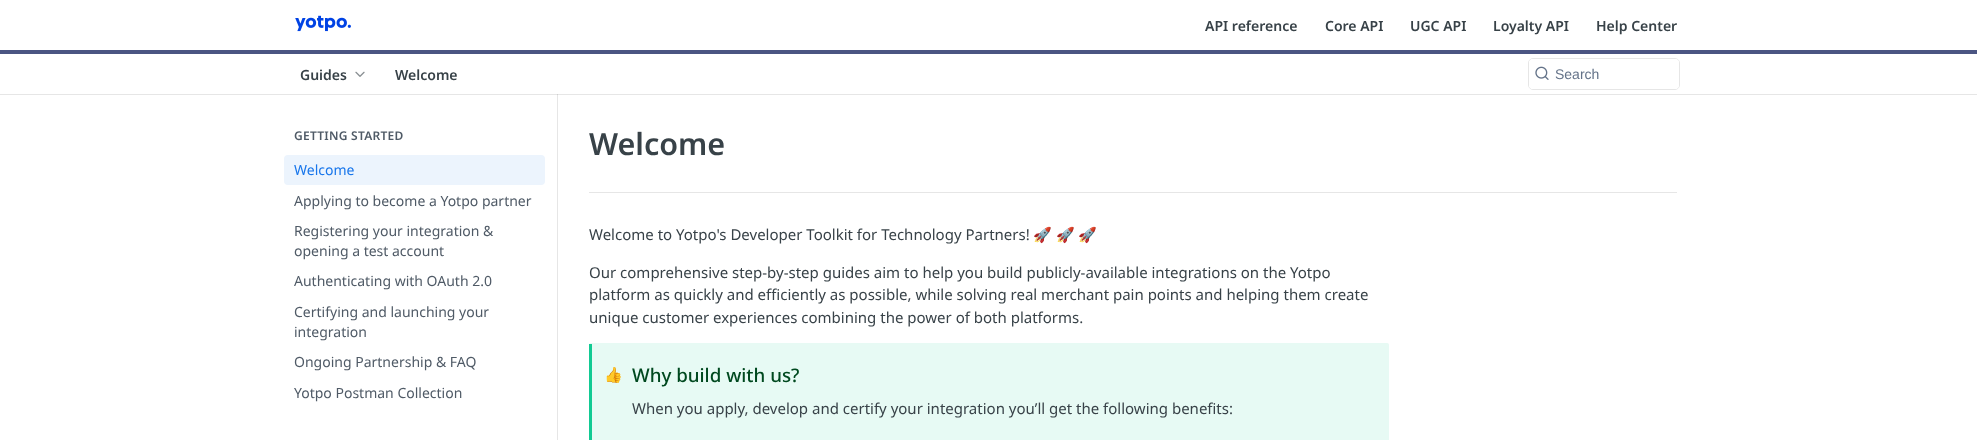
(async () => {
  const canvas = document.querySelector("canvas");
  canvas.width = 1977;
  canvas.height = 440;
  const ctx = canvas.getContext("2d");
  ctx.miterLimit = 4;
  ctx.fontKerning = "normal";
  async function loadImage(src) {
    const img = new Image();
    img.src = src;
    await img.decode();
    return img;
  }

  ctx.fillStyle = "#ffffff";
  ctx.fillRect(0, 0, 1977, 440);
  ctx.fillStyle = "#e6e6e6";
  ctx.fillRect(0, 94, 1977, 1);
  ctx.fillStyle = "#4b5582";
  ctx.fillRect(0, 50, 1977, 4);
  ctx.drawImage(await loadImage("img/1.png"), 295, 15, 56, 17);
  ctx.drawImage(await loadImage("img/2.png"), 355, 71, 10, 6);
  ctx.beginPath();
  ctx.roundRect(1528.5, 58.5, 151, 31, 4.5);
  ctx.strokeStyle = "#e6e6e6";
  ctx.stroke();
  ctx.fillStyle = "#ffffff";
  ctx.beginPath();
  ctx.roundRect(1529, 59, 150, 30, 4);
  ctx.fill();
  ctx.drawImage(await loadImage("img/3.png"), 1535, 66, 14, 14);
  ctx.fillStyle = "#e6e6e6";
  ctx.fillRect(557, 94, 1, 346);
  ctx.fillStyle = "#cfcfcf";
  ctx.fillRect(557, 94, 1, 1);
  ctx.fillStyle = "#ecf4fd";
  ctx.beginPath();
  ctx.roundRect(284, 155, 261, 30, 4);
  ctx.fill();
  ctx.fillStyle = "#e6e6e6";
  ctx.fillRect(589, 192, 1088, 1);
  ctx.fillStyle = "#e7faf4";
  ctx.beginPath();
  ctx.roundRect(589, 343, 800, 97, [2, 2, 0, 0]);
  ctx.fill();
  ctx.fillStyle = "#12ca93";
  ctx.fillRect(589, 344, 3, 96);
  ctx.font = "600 14px Noto Sans";
  ctx.fillStyle = "#384248";
  for (const [text, x, y] of [
    ["API reference", 1205, 31],
    ["Core API", 1325, 31],
    ["UGC API", 1410, 31],
    ["Loyalty API", 1493, 31],
    ["Help Center", 1596, 31],
    ["Guides", 300, 80],
    ["Welcome", 395, 80],
  ]) {
    ctx.fillText(text, x, y);
  }
  ctx.font = "14px Liberation Sans";
  ctx.fillStyle = "#637288";
  ctx.fillText("Search", 1555, 79);
  ctx.letterSpacing = "0.25px";
  ctx.font = "600 12px Noto Sans";
  ctx.fillStyle = "#4f5a66";
  ctx.fillText("GETTING STARTED", 294, 140);
  ctx.letterSpacing = "0px";
  ctx.font = "14px Noto Sans";
  ctx.fillStyle = "#1876eb";
  ctx.fillText("Welcome", 294, 175);
  ctx.fillStyle = "#4f5a66";
  for (const [text, x, y] of [
    ["Applying to become a Yotpo partner", 294, 206],
    ["Registering your integration &", 294, 236],
    ["opening a test account", 294, 256],
    ["Authenticating with OAuth 2.0", 294, 286],
    ["Certifying and launching your", 294, 317],
    ["integration", 294, 337],
    ["Ongoing Partnership & FAQ", 294, 367],
    ["Yotpo Postman Collection", 294, 398],
  ]) {
    ctx.fillText(text, x, y);
  }
  ctx.font = "600 30.5px Noto Sans";
  ctx.fillStyle = "#384248";
  ctx.fillText("Welcome", 589, 155);
  ctx.font = "15px Noto Sans";
  ctx.fillText("Welcome to Yotpo's Developer Toolkit for Technology Partners!", 589, 240);
  ctx.font = "15px Noto Color Emoji";
  for (const [text, x, y] of [
    ["🚀", 1033, 240],
    ["🚀", 1056, 240],
    ["🚀", 1078, 240],
  ]) {
    ctx.fillText(text, x, y);
  }
  ctx.font = "15px Noto Sans";
  for (const [text, x, y] of [
    ["Our comprehensive step-by-step guides aim to help you build publicly-available integrations on the Yotpo", 589, 278],
    ["platform as quickly and efficiently as possible, while solving real merchant pain points and helping them create", 589, 300],
    ["unique customer experiences combining the power of both platforms.", 589, 323],
  ]) {
    ctx.fillText(text, x, y);
  }
  ctx.font = "15px Noto Color Emoji";
  ctx.fillText("👍", 604, 380);
  ctx.font = "500 18.75px Noto Sans";
  ctx.fillStyle = "#00491f";
  ctx.fillText("Why build with us?", 632, 382);
  ctx.font = "15px Noto Sans";
  ctx.fillStyle = "#384248";
  ctx.fillText("When you apply, develop and certify your integration you’ll get the following benefits:", 632, 414);
})();
